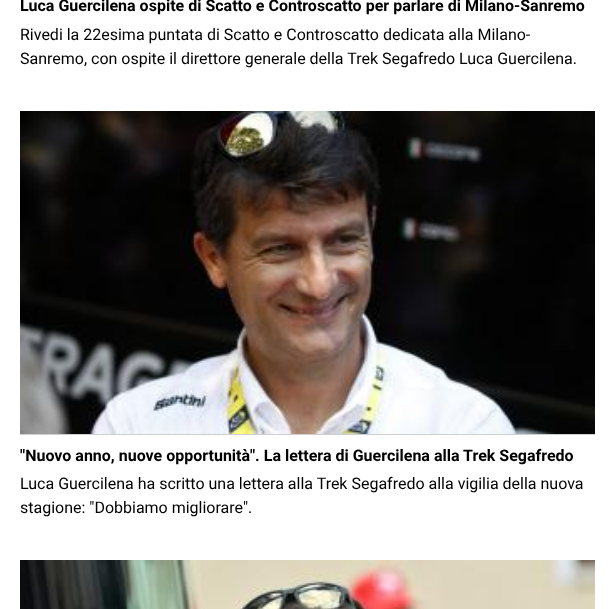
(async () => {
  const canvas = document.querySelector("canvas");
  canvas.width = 615;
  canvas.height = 609;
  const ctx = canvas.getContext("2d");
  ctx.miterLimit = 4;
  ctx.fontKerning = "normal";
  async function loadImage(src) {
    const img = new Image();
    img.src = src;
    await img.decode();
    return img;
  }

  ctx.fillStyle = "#ffffff";
  ctx.fillRect(0, 0, 615, 609);
  ctx.fillStyle = "#cecece";
  ctx.fillRect(20, 434, 575, 1);
  ctx.drawImage(await loadImage("img/1.png"), 20, 111, 575, 323);
  ctx.drawImage(await loadImage("img/2.png"), 20, 560, 575, 49);
  ctx.font = "bold 16px Roboto";
  ctx.fillStyle = "#000000";
  ctx.fillText("Luca Guercilena ospite di Scatto e Controscatto per parlare di Milano-Sanremo", 20, 11);
  ctx.font = "16px Roboto";
  ctx.fillText("Rivedi la 22esima puntata di Scatto e Controscatto dedicata alla Milano-", 20, 40);
  ctx.fillText("Sanremo, con ospite il direttore generale della Trek Segafredo Luca Guercilena.", 20, 64);
  ctx.font = "bold 16px Roboto";
  ctx.fillText("\"Nuovo anno, nuove opportunità\". La lettera di Guercilena alla Trek Segafredo", 20, 461);
  ctx.font = "16px Roboto";
  ctx.fillText("Luca Guercilena ha scritto una lettera alla Trek Segafredo alla vigilia della nuova", 20, 489);
  ctx.fillText("stagione: \"Dobbiamo migliorare\".", 20, 513);
})();
